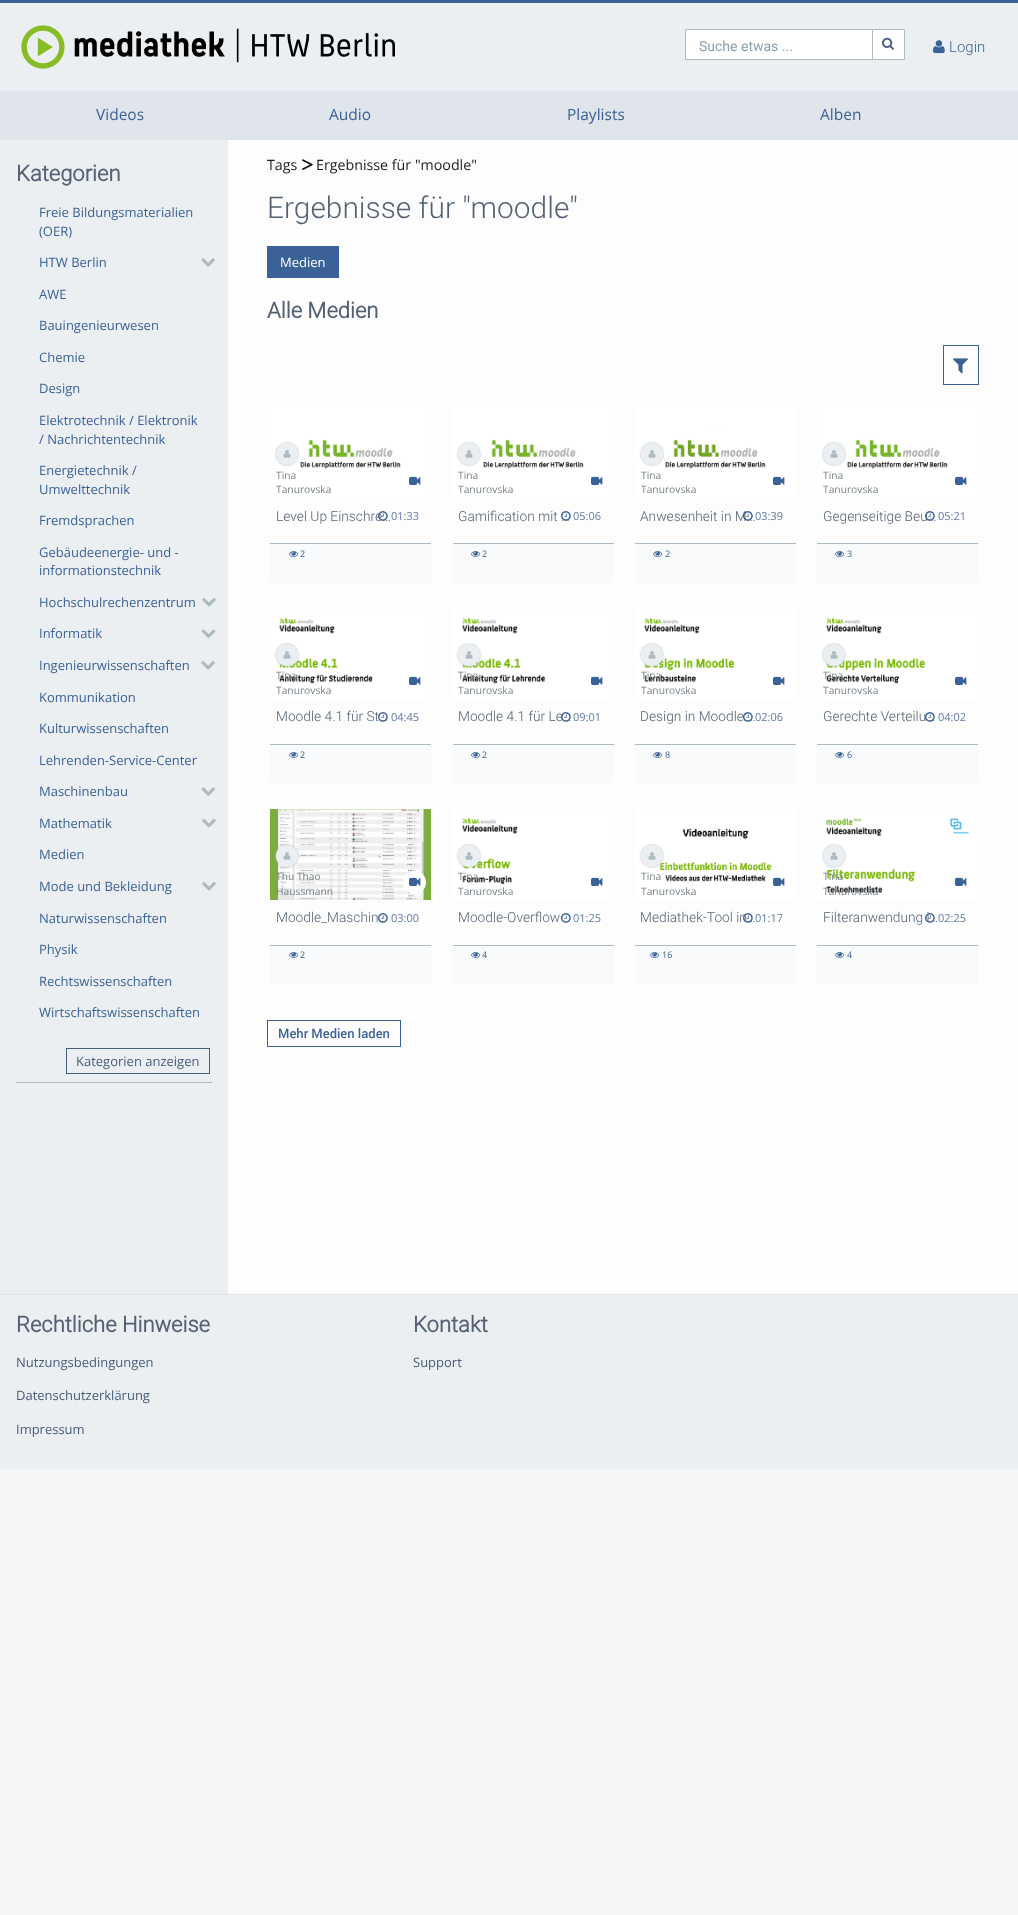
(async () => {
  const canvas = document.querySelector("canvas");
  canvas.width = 1018;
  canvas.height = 1915;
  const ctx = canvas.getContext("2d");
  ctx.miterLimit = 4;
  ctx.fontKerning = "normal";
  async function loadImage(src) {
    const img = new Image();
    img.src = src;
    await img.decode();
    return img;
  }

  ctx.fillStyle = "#f5f6f7";
  ctx.fillRect(0, 0, 1018, 1915);
  for (const [x, y, w, h, color] of [
    [0, 90, 1018, 1, "#e2e8ed"],
    [0, 3, 1018, 86, "#eceff2"],
    [0, 89, 1018, 1, "#eef1f3"],
    [0, 0, 1018, 3, "#3b6297"],
  ]) {
    ctx.fillStyle = color;
    ctx.fillRect(x, y, w, h);
  }
  ctx.drawImage(await loadImage("img/1.png"), 21, 25, 374, 44);
  ctx.fillStyle = "#ffffff";
  ctx.beginPath();
  ctx.rect(685.5, 29.5, 187, 30);
  ctx.fill();
  ctx.strokeStyle = "#acbbc3";
  ctx.stroke();
  ctx.beginPath();
  ctx.rect(872.5, 29.5, 32, 30);
  ctx.fill();
  ctx.stroke();
  ctx.drawImage(await loadImage("img/2.png"), 882, 37, 12, 13);
  ctx.drawImage(await loadImage("img/3.png"), 933, 40, 12, 14);
  for (const [x, y, w, h, color] of [
    [0, 91, 1018, 49, "#dfe5eb"],
    [0, 140, 228, 1154, "#eceff2"],
    [16, 1082, 196, 1, "#acbbc3"],
  ]) {
    ctx.fillStyle = color;
    ctx.fillRect(x, y, w, h);
  }
  ctx.drawImage(await loadImage("img/4.png"), 201, 258, 14, 9);
  ctx.drawImage(await loadImage("img/5.png"), 202, 598, 14, 9);
  ctx.drawImage(await loadImage("img/6.png"), 201, 629, 15, 9);
  ctx.drawImage(await loadImage("img/7.png"), 201, 661, 14, 9);
  ctx.drawImage(await loadImage("img/8.png"), 201, 787, 14, 9);
  ctx.drawImage(await loadImage("img/9.png"), 202, 819, 14, 9);
  ctx.drawImage(await loadImage("img/10.png"), 202, 882, 14, 9);
  ctx.strokeStyle = "#475d7b";
  ctx.strokeRect(66.5, 1048.5, 143, 25);
  ctx.fillStyle = "#fdfdfd";
  ctx.fillRect(228, 140, 790, 1154);
  ctx.drawImage(await loadImage("img/11.png"), 302, 159, 11, 11);
  ctx.fillStyle = "#3b6297";
  ctx.fillRect(267, 246, 72, 32);
  ctx.strokeStyle = "#3b6297";
  ctx.strokeRect(943.5, 345.5, 35, 39);
  ctx.drawImage(await loadImage("img/12.png"), 953, 358, 15, 16);
  ctx.drawImage(await loadImage("img/13.png"), 270, 408, 161, 90);
  ctx.fillStyle = "#acbbc3";
  ctx.filter = "blur(1px)";
  ctx.beginPath();
  ctx.roundRect(276, 443, 22, 22, 11);
  ctx.fill();
  ctx.filter = "none";
  ctx.drawImage(await loadImage("img/14.png"), 276, 443, 22, 22);
  ctx.drawImage(await loadImage("img/15.png"), 409, 476, 12, 9);
  ctx.drawImage(await loadImage("img/16.png"), 378, 511, 10, 10);
  ctx.fillStyle = "#f9fafb";
  ctx.fillRect(270, 544, 161, 39);
  ctx.fillStyle = "#acbbc3";
  ctx.fillRect(270, 543, 161, 1);
  ctx.drawImage(await loadImage("img/17.png"), 289, 551, 10, 6);
  ctx.drawImage(await loadImage("img/13.png"), 453, 408, 161, 90);
  ctx.filter = "blur(1px)";
  ctx.beginPath();
  ctx.roundRect(458, 443, 22, 22, 11);
  ctx.fill();
  ctx.filter = "none";
  ctx.drawImage(await loadImage("img/14.png"), 458, 443, 22, 22);
  ctx.drawImage(await loadImage("img/15.png"), 591, 476, 12, 9);
  ctx.drawImage(await loadImage("img/16.png"), 561, 511, 10, 10);
  ctx.fillStyle = "#f9fafb";
  ctx.fillRect(453, 544, 161, 39);
  ctx.fillStyle = "#acbbc3";
  ctx.fillRect(453, 543, 161, 1);
  ctx.drawImage(await loadImage("img/17.png"), 471, 551, 10, 6);
  ctx.drawImage(await loadImage("img/18.png"), 635, 408, 161, 90);
  ctx.filter = "blur(1px)";
  ctx.beginPath();
  ctx.roundRect(641, 443, 22, 22, 11);
  ctx.fill();
  ctx.filter = "none";
  ctx.drawImage(await loadImage("img/14.png"), 641, 443, 22, 22);
  ctx.drawImage(await loadImage("img/15.png"), 773, 476, 12, 9);
  ctx.drawImage(await loadImage("img/16.png"), 743, 511, 10, 10);
  ctx.fillStyle = "#f9fafb";
  ctx.fillRect(635, 544, 161, 39);
  ctx.fillStyle = "#acbbc3";
  ctx.fillRect(635, 543, 161, 1);
  ctx.drawImage(await loadImage("img/17.png"), 653, 551, 10, 6);
  ctx.drawImage(await loadImage("img/13.png"), 817, 408, 161, 90);
  ctx.filter = "blur(1px)";
  ctx.beginPath();
  ctx.roundRect(823, 443, 22, 22, 11);
  ctx.fill();
  ctx.filter = "none";
  ctx.drawImage(await loadImage("img/14.png"), 823, 443, 22, 22);
  ctx.drawImage(await loadImage("img/15.png"), 955, 476, 12, 9);
  ctx.drawImage(await loadImage("img/16.png"), 925, 511, 10, 10);
  ctx.fillStyle = "#f9fafb";
  ctx.fillRect(817, 544, 161, 39);
  ctx.fillStyle = "#acbbc3";
  ctx.fillRect(817, 543, 161, 1);
  ctx.drawImage(await loadImage("img/17.png"), 835, 551, 10, 6);
  ctx.drawImage(await loadImage("img/19.png"), 270, 609, 161, 90);
  ctx.filter = "blur(1px)";
  ctx.beginPath();
  ctx.roundRect(276, 644, 22, 22, 11);
  ctx.fill();
  ctx.filter = "none";
  ctx.drawImage(await loadImage("img/20.png"), 276, 644, 22, 22);
  ctx.drawImage(await loadImage("img/15.png"), 409, 676, 12, 9);
  ctx.drawImage(await loadImage("img/16.png"), 378, 712, 10, 10);
  ctx.fillStyle = "#f9fafb";
  ctx.fillRect(270, 745, 161, 38);
  ctx.fillStyle = "#acbbc3";
  ctx.fillRect(270, 744, 161, 1);
  ctx.drawImage(await loadImage("img/17.png"), 289, 752, 10, 6);
  ctx.drawImage(await loadImage("img/21.png"), 453, 609, 161, 90);
  ctx.filter = "blur(1px)";
  ctx.beginPath();
  ctx.roundRect(458, 644, 22, 22, 11);
  ctx.fill();
  ctx.filter = "none";
  ctx.drawImage(await loadImage("img/22.png"), 458, 644, 22, 22);
  ctx.drawImage(await loadImage("img/15.png"), 591, 676, 12, 9);
  ctx.drawImage(await loadImage("img/16.png"), 561, 712, 10, 10);
  ctx.fillStyle = "#f9fafb";
  ctx.fillRect(453, 745, 161, 38);
  ctx.fillStyle = "#acbbc3";
  ctx.fillRect(453, 744, 161, 1);
  ctx.drawImage(await loadImage("img/17.png"), 471, 752, 10, 6);
  ctx.drawImage(await loadImage("img/23.png"), 635, 609, 161, 90);
  ctx.filter = "blur(1px)";
  ctx.beginPath();
  ctx.roundRect(641, 644, 22, 22, 11);
  ctx.fill();
  ctx.filter = "none";
  ctx.drawImage(await loadImage("img/24.png"), 641, 644, 22, 22);
  ctx.drawImage(await loadImage("img/15.png"), 773, 676, 12, 9);
  ctx.drawImage(await loadImage("img/16.png"), 743, 712, 10, 10);
  ctx.fillStyle = "#f9fafb";
  ctx.fillRect(635, 745, 161, 38);
  ctx.fillStyle = "#acbbc3";
  ctx.fillRect(635, 744, 161, 1);
  ctx.drawImage(await loadImage("img/17.png"), 653, 752, 10, 6);
  ctx.drawImage(await loadImage("img/25.png"), 817, 609, 161, 90);
  ctx.filter = "blur(1px)";
  ctx.beginPath();
  ctx.roundRect(823, 644, 22, 22, 11);
  ctx.fill();
  ctx.filter = "none";
  ctx.drawImage(await loadImage("img/26.png"), 823, 644, 22, 22);
  ctx.drawImage(await loadImage("img/15.png"), 955, 676, 12, 9);
  ctx.drawImage(await loadImage("img/16.png"), 925, 712, 10, 10);
  ctx.fillStyle = "#f9fafb";
  ctx.fillRect(817, 745, 161, 38);
  ctx.fillStyle = "#acbbc3";
  ctx.fillRect(817, 744, 161, 1);
  ctx.drawImage(await loadImage("img/17.png"), 835, 752, 10, 6);
  ctx.drawImage(await loadImage("img/27.png"), 270, 809, 161, 91);
  ctx.filter = "blur(1px)";
  ctx.beginPath();
  ctx.roundRect(276, 845, 22, 22, 11);
  ctx.fill();
  ctx.filter = "none";
  ctx.drawImage(await loadImage("img/28.png"), 276, 845, 22, 22);
  ctx.fillStyle = "#ffffff";
  ctx.beginPath();
  ctx.arc(414.5, 882.5, 11.5, 0, Math.PI * 2);
  ctx.fill();
  ctx.drawImage(await loadImage("img/15.png"), 409, 877, 12, 9);
  ctx.drawImage(await loadImage("img/16.png"), 378, 913, 10, 10);
  ctx.fillStyle = "#f9fafb";
  ctx.fillRect(270, 946, 161, 38);
  ctx.fillStyle = "#acbbc3";
  ctx.fillRect(270, 945, 161, 1);
  ctx.drawImage(await loadImage("img/17.png"), 289, 952, 10, 6);
  ctx.drawImage(await loadImage("img/29.png"), 453, 809, 161, 91);
  ctx.filter = "blur(1px)";
  ctx.beginPath();
  ctx.roundRect(458, 845, 22, 22, 11);
  ctx.fill();
  ctx.filter = "none";
  ctx.drawImage(await loadImage("img/30.png"), 458, 845, 22, 22);
  ctx.drawImage(await loadImage("img/15.png"), 591, 877, 12, 9);
  ctx.drawImage(await loadImage("img/16.png"), 561, 913, 10, 10);
  ctx.fillStyle = "#f9fafb";
  ctx.fillRect(453, 946, 161, 38);
  ctx.fillStyle = "#acbbc3";
  ctx.fillRect(453, 945, 161, 1);
  ctx.drawImage(await loadImage("img/17.png"), 471, 952, 10, 6);
  ctx.drawImage(await loadImage("img/31.png"), 635, 809, 161, 91);
  ctx.filter = "blur(1px)";
  ctx.beginPath();
  ctx.roundRect(641, 845, 22, 22, 11);
  ctx.fill();
  ctx.filter = "none";
  ctx.drawImage(await loadImage("img/32.png"), 641, 845, 22, 22);
  ctx.drawImage(await loadImage("img/15.png"), 773, 877, 12, 9);
  ctx.drawImage(await loadImage("img/16.png"), 743, 913, 10, 10);
  ctx.fillStyle = "#f9fafb";
  ctx.fillRect(635, 946, 161, 38);
  ctx.fillStyle = "#acbbc3";
  ctx.fillRect(635, 945, 161, 1);
  ctx.drawImage(await loadImage("img/17.png"), 650, 952, 10, 6);
  ctx.drawImage(await loadImage("img/33.png"), 817, 809, 161, 91);
  ctx.filter = "blur(1px)";
  ctx.beginPath();
  ctx.roundRect(823, 845, 22, 22, 11);
  ctx.fill();
  ctx.filter = "none";
  ctx.drawImage(await loadImage("img/14.png"), 823, 845, 22, 22);
  ctx.drawImage(await loadImage("img/15.png"), 955, 877, 12, 9);
  ctx.drawImage(await loadImage("img/16.png"), 925, 913, 10, 10);
  ctx.fillStyle = "#f9fafb";
  ctx.fillRect(817, 946, 161, 38);
  ctx.fillStyle = "#acbbc3";
  ctx.fillRect(817, 945, 161, 1);
  ctx.drawImage(await loadImage("img/17.png"), 835, 952, 10, 6);
  ctx.strokeRect(267.5, 1020.5, 133, 26);
  ctx.fillStyle = "#eceff2";
  ctx.fillRect(0, 1295, 1018, 174);
  ctx.fillStyle = "#dfe5eb";
  ctx.fillRect(0, 1294, 1018, 1);
  ctx.font = "14px Roboto";
  ctx.fillStyle = "#8a9eac";
  ctx.fillText("Suche etwas ...", 699, 51);
  ctx.font = "300 15px Roboto";
  ctx.fillStyle = "#3b6297";
  ctx.fillText("Login", 949, 52);
  ctx.font = "15.5px 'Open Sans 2'";
  for (const [text, x, y] of [
    ["Videos", 96, 120],
    ["Audio", 329, 120],
    ["Playlists", 567, 120],
    ["Alben", 820, 120],
  ]) {
    ctx.fillText(text, x, y);
  }
  ctx.font = "bold 22px Roboto";
  ctx.fillStyle = "#546174";
  ctx.fillText("Kategorien", 16, 181);
  ctx.font = "13px Open Sans";
  ctx.fillStyle = "#3b6297";
  for (const [text, x, y] of [
    ["Freie Bildungsmaterialien", 39, 217],
    ["(OER)", 39, 236],
    ["HTW Berlin", 39, 267],
    ["AWE", 39, 299],
    ["Bauingenieurwesen", 39, 330],
    ["Chemie", 39, 362],
    ["Design", 39, 393],
    ["Elektrotechnik / Elektronik", 39, 425],
    ["/ Nachrichtentechnik", 39, 444],
    ["Energietechnik /", 39, 475],
    ["Umwelttechnik", 39, 494],
    ["Fremdsprachen", 39, 525],
    ["Gebäudeenergie- und -", 39, 557],
    ["informationstechnik", 39, 575],
    ["Hochschulrechenzentrum", 39, 607],
    ["Informatik", 39, 638],
    ["Ingenieurwissenschaften", 39, 670],
    ["Kommunikation", 39, 702],
    ["Kulturwissenschaften", 39, 733],
    ["Lehrenden-Service-Center", 39, 765],
    ["Maschinenbau", 39, 796],
    ["Mathematik", 39, 828],
    ["Medien", 39, 859],
    ["Mode und Bekleidung", 39, 891],
    ["Naturwissenschaften", 39, 923],
    ["Physik", 39, 954],
    ["Rechtswissenschaften", 39, 986],
    ["Wirtschaftswissenschaften", 39, 1017],
  ]) {
    ctx.fillText(text, x, y);
  }
  ctx.fillStyle = "#475d7b";
  ctx.fillText("Kategorien anzeigen", 76, 1066);
  ctx.font = "14.25px Open Sans";
  ctx.fillStyle = "#1a1c1e";
  ctx.fillText("Tags", 267, 170);
  ctx.fillText("Ergebnisse für \"moodle\"", 316, 170);
  ctx.font = "300 29.9px Roboto";
  ctx.fillStyle = "#546174";
  ctx.fillText("Ergebnisse für \"moodle\"", 267, 218);
  ctx.font = "13px Open Sans";
  ctx.fillStyle = "#ffffff";
  ctx.fillText("Medien", 280, 267);
  ctx.font = "bold 22px Roboto";
  ctx.fillStyle = "#546174";
  ctx.fillText("Alle Medien", 267, 318);
  ctx.font = "10.25px Open Sans";
  ctx.fillStyle = "#798388";
  ctx.fillText("Tina", 276, 479);
  ctx.fillText("Tanurovska", 276, 493);
  ctx.font = "300 13.75px Roboto";
  ctx.fillStyle = "#546174";
  ctx.fillText("Level Up Einschre…", 276, 521);
  ctx.font = "11px Open Sans";
  ctx.fillStyle = "#617ca3";
  ctx.fillText("01:33", 391, 520);
  ctx.font = "9px Open Sans";
  ctx.fillStyle = "#3b6297";
  ctx.fillText("2", 300, 557);
  ctx.font = "10.25px Open Sans";
  ctx.fillStyle = "#798388";
  ctx.fillText("Tina", 458, 479);
  ctx.fillText("Tanurovska", 458, 493);
  ctx.font = "300 13.75px Roboto";
  ctx.fillStyle = "#546174";
  ctx.fillText("Gamification mit …", 458, 521);
  ctx.font = "11px Open Sans";
  ctx.fillStyle = "#617ca3";
  ctx.fillText("05:06", 573, 520);
  ctx.font = "9px Open Sans";
  ctx.fillStyle = "#3b6297";
  ctx.fillText("2", 482, 557);
  ctx.font = "10.25px Open Sans";
  ctx.fillStyle = "#798388";
  ctx.fillText("Tina", 641, 479);
  ctx.fillText("Tanurovska", 641, 493);
  ctx.font = "300 13.75px Roboto";
  ctx.fillStyle = "#546174";
  ctx.fillText("Anwesenheit in M…", 640, 521);
  ctx.font = "11px Open Sans";
  ctx.fillStyle = "#617ca3";
  ctx.fillText("03:39", 755, 520);
  ctx.font = "9px Open Sans";
  ctx.fillStyle = "#3b6297";
  ctx.fillText("2", 665, 557);
  ctx.font = "10.25px Open Sans";
  ctx.fillStyle = "#798388";
  ctx.fillText("Tina", 823, 479);
  ctx.fillText("Tanurovska", 823, 493);
  ctx.font = "300 13.75px Roboto";
  ctx.fillStyle = "#546174";
  ctx.fillText("Gegenseitige Beu…", 823, 521);
  ctx.font = "11px Open Sans";
  ctx.fillStyle = "#617ca3";
  ctx.fillText("05:21", 938, 520);
  ctx.font = "9px Open Sans";
  ctx.fillStyle = "#3b6297";
  ctx.fillText("3", 847, 557);
  ctx.font = "10.25px Open Sans";
  ctx.fillStyle = "#798388";
  ctx.fillText("Tina", 276, 679);
  ctx.fillText("Tanurovska", 276, 694);
  ctx.font = "300 13.75px Roboto";
  ctx.fillStyle = "#546174";
  ctx.fillText("Moodle 4.1 für St…", 276, 721);
  ctx.font = "11px Open Sans";
  ctx.fillStyle = "#617ca3";
  ctx.fillText("04:45", 391, 721);
  ctx.font = "9px Open Sans";
  ctx.fillStyle = "#3b6297";
  ctx.fillText("2", 300, 758);
  ctx.font = "10.25px Open Sans";
  ctx.fillStyle = "#798388";
  ctx.fillText("Tina", 458, 679);
  ctx.fillText("Tanurovska", 458, 694);
  ctx.font = "300 13.75px Roboto";
  ctx.fillStyle = "#546174";
  ctx.fillText("Moodle 4.1 für Le…", 458, 721);
  ctx.font = "11px Open Sans";
  ctx.fillStyle = "#617ca3";
  ctx.fillText("09:01", 573, 721);
  ctx.font = "9px Open Sans";
  ctx.fillStyle = "#3b6297";
  ctx.fillText("2", 482, 758);
  ctx.font = "10.25px Open Sans";
  ctx.fillStyle = "#798388";
  ctx.fillText("Tina", 641, 679);
  ctx.fillText("Tanurovska", 641, 694);
  ctx.font = "300 13.75px Roboto";
  ctx.fillStyle = "#546174";
  ctx.fillText("Design in Moodle:…", 640, 721);
  ctx.font = "11px Open Sans";
  ctx.fillStyle = "#617ca3";
  ctx.fillText("02:06", 755, 721);
  ctx.font = "9px Open Sans";
  ctx.fillStyle = "#3b6297";
  ctx.fillText("8", 665, 758);
  ctx.font = "10.25px Open Sans";
  ctx.fillStyle = "#798388";
  ctx.fillText("Tina", 823, 679);
  ctx.fillText("Tanurovska", 823, 694);
  ctx.font = "300 13.75px Roboto";
  ctx.fillStyle = "#546174";
  ctx.fillText("Gerechte Verteilu…", 823, 721);
  ctx.font = "11px Open Sans";
  ctx.fillStyle = "#617ca3";
  ctx.fillText("04:02", 938, 721);
  ctx.font = "9px Open Sans";
  ctx.fillStyle = "#3b6297";
  ctx.fillText("6", 847, 758);
  ctx.font = "10.25px Open Sans";
  ctx.fillStyle = "#798388";
  ctx.fillText("Thu Thao", 276, 880);
  ctx.fillText("Haussmann", 276, 895);
  ctx.font = "300 13.75px Roboto";
  ctx.fillStyle = "#546174";
  ctx.fillText("Moodle_Maschin…", 276, 922);
  ctx.font = "11px Open Sans";
  ctx.fillStyle = "#617ca3";
  ctx.fillText("03:00", 391, 922);
  ctx.font = "9px Open Sans";
  ctx.fillStyle = "#3b6297";
  ctx.fillText("2", 300, 958);
  ctx.font = "10.25px Open Sans";
  ctx.fillStyle = "#798388";
  ctx.fillText("Tina", 458, 880);
  ctx.fillText("Tanurovska", 458, 895);
  ctx.font = "300 13.75px Roboto";
  ctx.fillStyle = "#546174";
  ctx.fillText("Moodle-Overflow", 458, 922);
  ctx.font = "11px Open Sans";
  ctx.fillStyle = "#617ca3";
  ctx.fillText("01:25", 573, 922);
  ctx.font = "9px Open Sans";
  ctx.fillStyle = "#3b6297";
  ctx.fillText("4", 482, 958);
  ctx.font = "10.25px Open Sans";
  ctx.fillStyle = "#798388";
  ctx.fillText("Tina", 641, 880);
  ctx.fillText("Tanurovska", 641, 895);
  ctx.font = "300 13.75px Roboto";
  ctx.fillStyle = "#546174";
  ctx.fillText("Mediathek-Tool in…", 640, 922);
  ctx.font = "11px Open Sans";
  ctx.fillStyle = "#617ca3";
  ctx.fillText("01:17", 755, 922);
  ctx.font = "9px Open Sans";
  ctx.fillStyle = "#3b6297";
  ctx.fillText("16", 662, 958);
  ctx.font = "10.25px Open Sans";
  ctx.fillStyle = "#798388";
  ctx.fillText("Tina", 823, 880);
  ctx.fillText("Tanurovska", 823, 895);
  ctx.font = "300 13.75px Roboto";
  ctx.fillStyle = "#546174";
  ctx.fillText("Filteranwendung i…", 823, 922);
  ctx.font = "11px Open Sans";
  ctx.fillStyle = "#617ca3";
  ctx.fillText("02:25", 938, 922);
  ctx.font = "9px Open Sans";
  ctx.fillStyle = "#3b6297";
  ctx.fillText("4", 847, 958);
  ctx.font = "500 13px Roboto";
  ctx.fillText("Mehr Medien laden", 278, 1038);
  ctx.font = "bold 22px Roboto";
  ctx.fillStyle = "#546174";
  ctx.fillText("Rechtliche Hinweise", 16, 1332);
  ctx.font = "13px Open Sans";
  ctx.fillStyle = "#475d7b";
  for (const [text, x, y] of [
    ["Nutzungsbedingungen", 16, 1367],
    ["Datenschutzerklärung", 16, 1400],
    ["Impressum", 16, 1434],
  ]) {
    ctx.fillText(text, x, y);
  }
  ctx.font = "bold 22px Roboto";
  ctx.fillStyle = "#546174";
  ctx.fillText("Kontakt", 413, 1332);
  ctx.font = "13px Open Sans";
  ctx.fillStyle = "#475d7b";
  ctx.fillText("Support", 413, 1367);
})();
